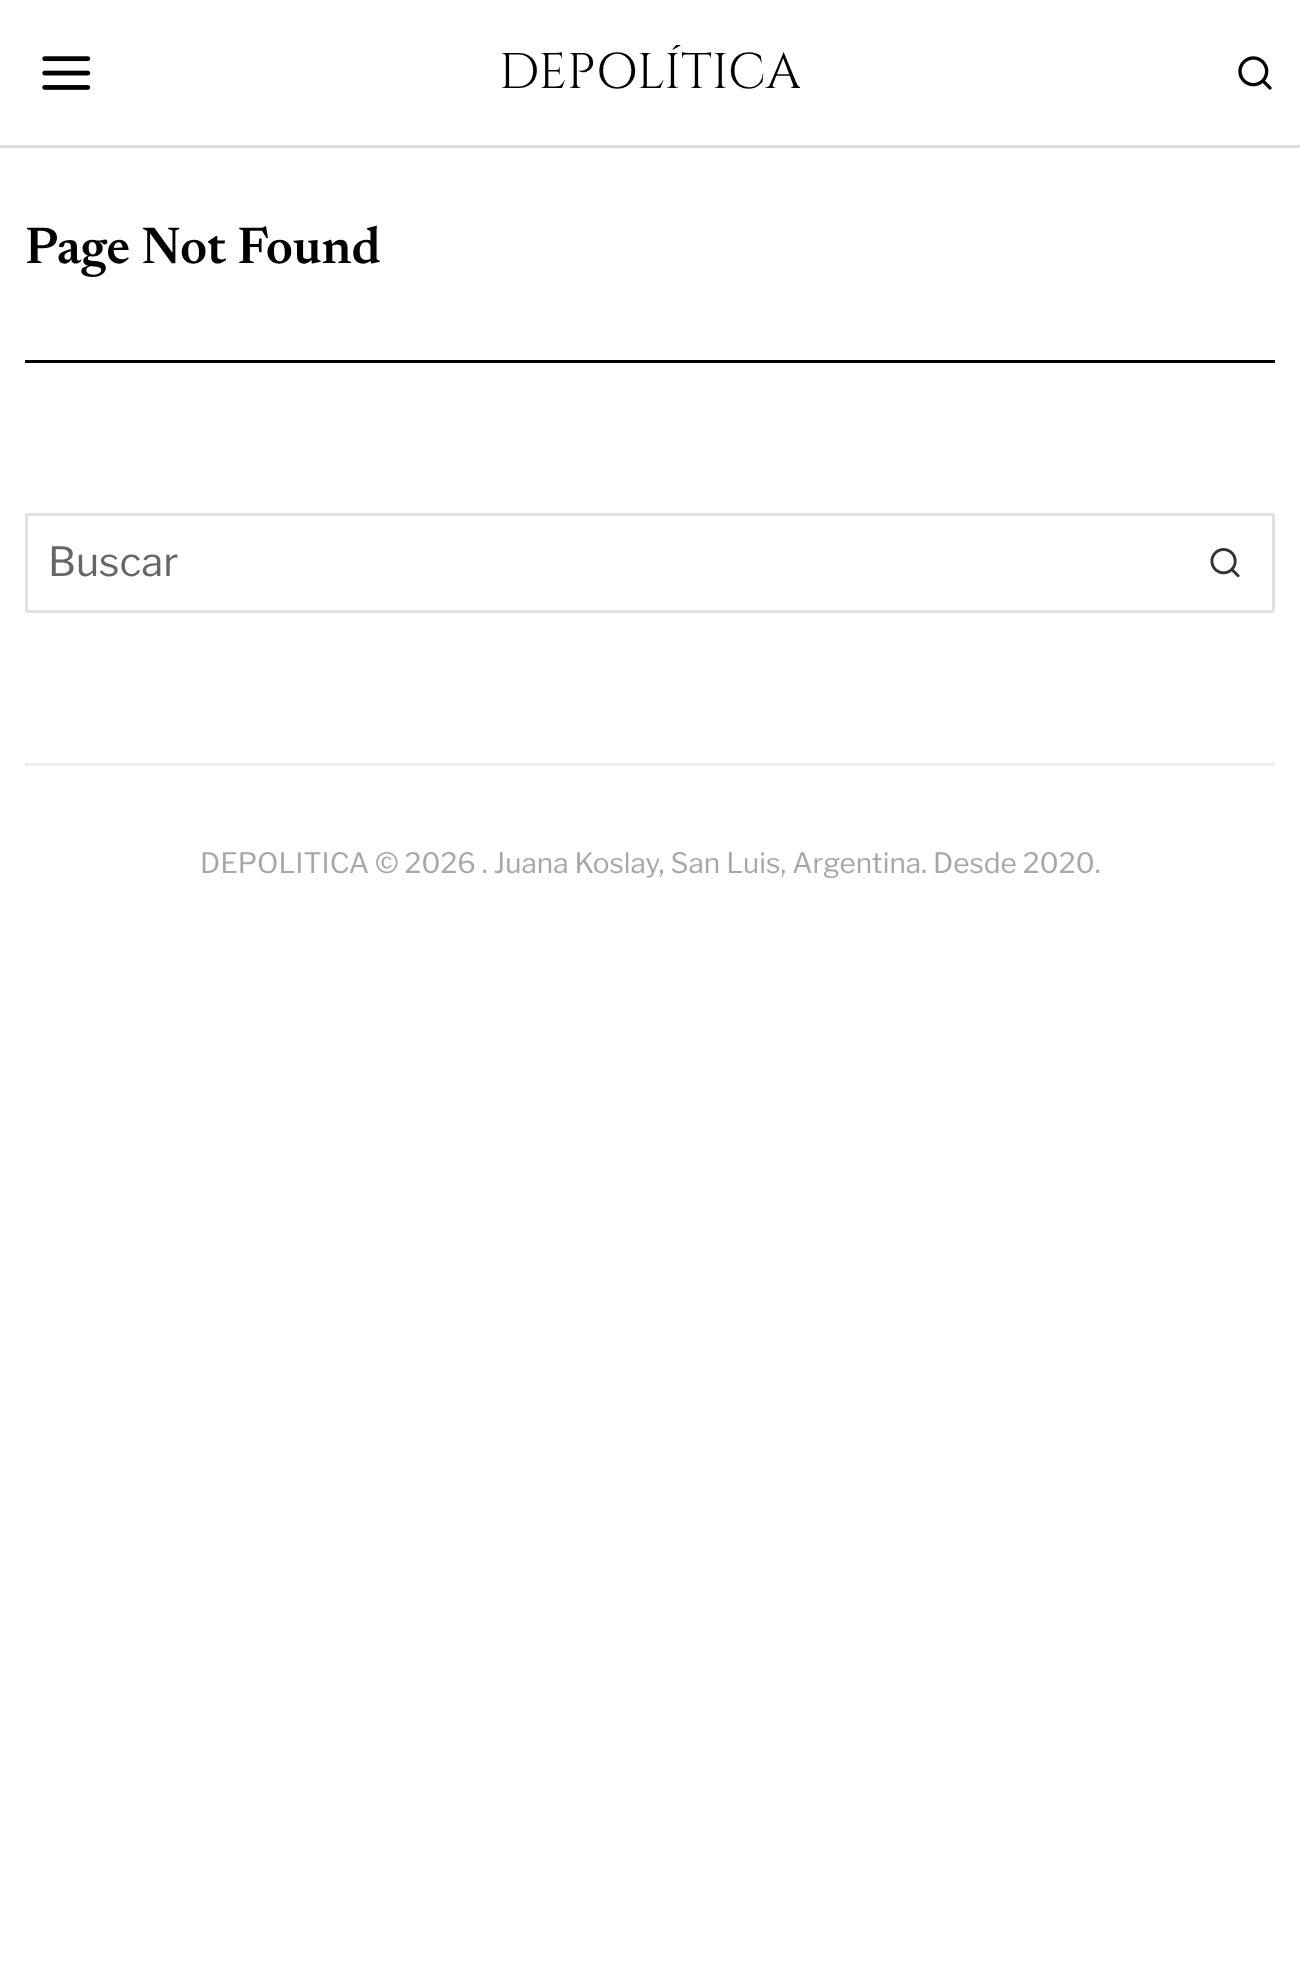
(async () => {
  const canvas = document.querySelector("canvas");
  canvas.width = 1300;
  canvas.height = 1977;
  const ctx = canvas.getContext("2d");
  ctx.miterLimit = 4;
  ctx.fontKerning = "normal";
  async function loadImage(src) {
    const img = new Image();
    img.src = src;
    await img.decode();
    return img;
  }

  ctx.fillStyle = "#ffffff";
  ctx.fillRect(0, 0, 1300, 1977);
  ctx.fillStyle = "#dddddd";
  ctx.fillRect(0, 145, 1300, 3);
  ctx.drawImage(await loadImage("img/1.png"), 42, 56, 49, 34);
  ctx.drawImage(await loadImage("img/2.png"), 1238, 56, 34, 34);
  ctx.fillStyle = "#000000";
  ctx.fillRect(25, 360, 1250, 3);
  ctx.beginPath();
  ctx.roundRect(26.5, 514.5, 1247, 97, 1);
  ctx.strokeStyle = "#e0e0e0";
  ctx.lineWidth = 3;
  ctx.stroke();
  ctx.drawImage(await loadImage("img/3.png"), 1210, 548, 30, 30);
  ctx.fillStyle = "#eeeeee";
  ctx.fillRect(25, 763, 1250, 3);
  ctx.save();
  ctx.beginPath();
  ctx.rect(500, 45, 300, 55);
  ctx.clip();
  ctx.font = "50px Cinzel";
  ctx.fillStyle = "#000000";
  ctx.fillText("DEPOLÍTICA", 499, 88);
  ctx.restore();
  ctx.font = "600 52.5px Newsreader";
  ctx.fillStyle = "#000000";
  ctx.fillText("Page Not Found", 25, 263);
  ctx.font = "40px Libre Franklin";
  ctx.fillStyle = "#666666";
  ctx.fillText("Buscar", 48, 576);
  ctx.font = "28px Libre Franklin";
  ctx.fillStyle = "#a7a7a7";
  ctx.fillText("DEPOLITICA © 2026 . Juana Koslay, San Luis, Argentina. Desde 2020.", 200, 873);
})();
